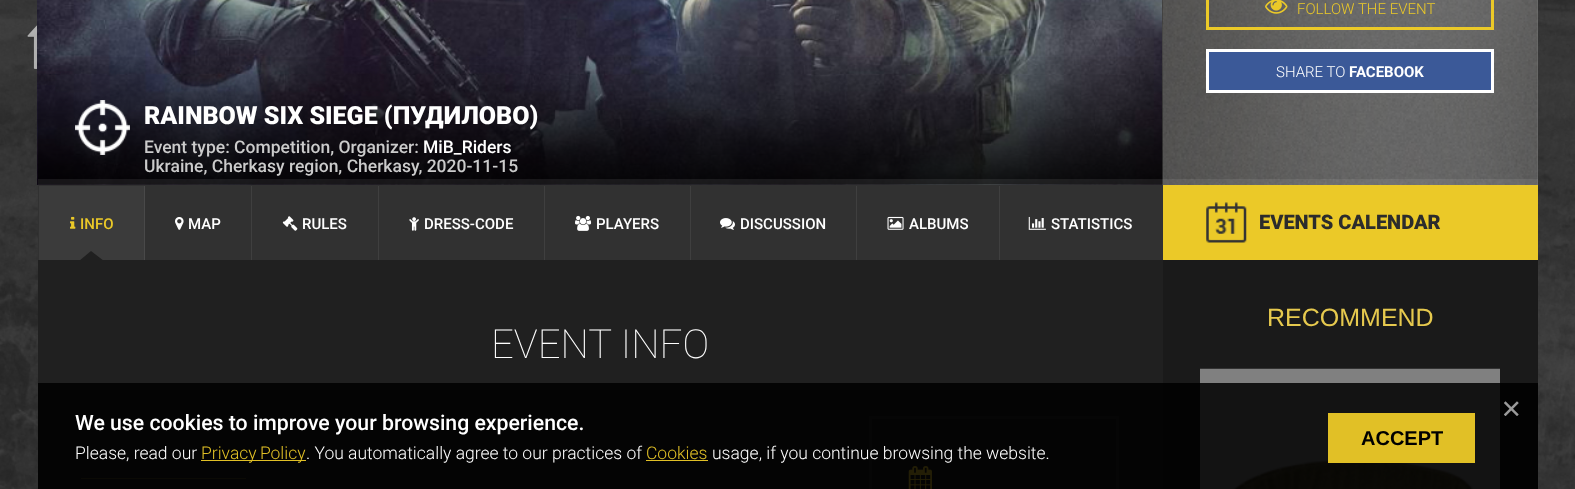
(async () => {
  const canvas = document.querySelector("canvas");
  canvas.width = 1575;
  canvas.height = 489;
  const ctx = canvas.getContext("2d");
  ctx.miterLimit = 4;
  ctx.fontKerning = "normal";
  async function loadImage(src) {
    const img = new Image();
    img.src = src;
    await img.decode();
    return img;
  }
  let path;

  ctx.fillStyle = "#ffffff";
  ctx.fillRect(0, 0, 1575, 489);
  ctx.drawImage(await loadImage("img/1.png"), 0, 0, 1575, 489);
  ctx.drawImage(await loadImage("img/2.png"), 27, 25, 10, 44);
  ctx.drawImage(await loadImage("img/3.png"), 37, 0, 1125, 185);
  ctx.fillStyle = "#727272";
  ctx.fillRect(1537, 0, 1, 185);
  ctx.drawImage(await loadImage("img/4.png"), 1162, 0, 376, 185);
  ctx.strokeStyle = "#ebc928";
  ctx.lineWidth = 3;
  ctx.strokeRect(1207.5, -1.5, 285, 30);
  ctx.drawImage(await loadImage("img/5.png"), 1265, 0, 23, 14);
  ctx.fillStyle = "#3b5998";
  ctx.beginPath();
  ctx.rect(1207.5, 50.5, 285, 41);
  ctx.fill();
  ctx.strokeStyle = "#ffffff";
  ctx.stroke();
  ctx.drawImage(await loadImage("img/6.png"), 37, 57, 1126, 128);
  for (const [x, y, w, h, color] of [
    [38, 179, 1500, 6, "rgba(255, 255, 255, 0.08)"],
    [38, 185, 1125, 75, "#313131"],
    [39, 186, 105, 74, "rgba(255, 255, 255, 0.05)"],
    [144, 186, 1, 75, "#494949"],
  ]) {
    ctx.fillStyle = color;
    ctx.fillRect(x, y, w, h);
  }
  ctx.drawImage(await loadImage("img/7.png"), 70, 216, 6, 13);
  ctx.fillStyle = "#202020";
  path = new Path2D("M104 261H79L91 251Z");
  ctx.fill(path);
  ctx.fillStyle = "rgba(255, 255, 255, 0.07)";
  ctx.fillRect(251, 186, 1, 75);
  ctx.drawImage(await loadImage("img/8.png"), 175, 217, 9, 13);
  ctx.fillRect(378, 186, 1, 75);
  ctx.drawImage(await loadImage("img/9.png"), 282, 216, 16, 15);
  ctx.fillRect(544, 186, 1, 75);
  ctx.drawImage(await loadImage("img/10.png"), 409, 217, 10, 14);
  ctx.fillRect(690, 186, 1, 75);
  ctx.drawImage(await loadImage("img/11.png"), 575, 215, 17, 16);
  ctx.fillRect(856, 186, 1, 75);
  ctx.drawImage(await loadImage("img/12.png"), 720, 218, 15, 12);
  ctx.fillRect(999, 186, 1, 75);
  ctx.drawImage(await loadImage("img/13.png"), 887, 216, 17, 14);
  ctx.drawImage(await loadImage("img/14.png"), 1028, 216, 18, 14);
  ctx.fillStyle = "#ebc928";
  ctx.fillRect(1163, 185, 375, 75);
  ctx.drawImage(await loadImage("img/15.png"), 1206, 202, 41, 41);
  ctx.fillStyle = "#202020";
  ctx.fillRect(38, 260, 1125, 229);
  ctx.fillStyle = "#1a1a1a";
  ctx.fillRect(1163, 260, 375, 229);
  ctx.drawImage(await loadImage("img/16.png"), 1200, 368, 300, 121);
  ctx.fillStyle = "#494222";
  ctx.fillRect(81, 478, 165, 1);
  ctx.strokeStyle = "#2d2d2d";
  ctx.strokeRect(870.5, 417.5, 247, 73);
  ctx.drawImage(await loadImage("img/17.png"), 908, 466, 24, 23);
  ctx.fillStyle = "rgba(0, 0, 0, 0.85)";
  ctx.fillRect(38, 383, 1500, 106);
  ctx.drawImage(await loadImage("img/18.png"), 1504, 401, 15, 15);
  for (const [x, y, w, h, color] of [
    [201, 460, 105, 1, "#e1c026"],
    [646, 460, 62, 1, "#e1c026"],
    [1328, 413, 147, 50, "#e1c026"],
  ]) {
    ctx.fillStyle = color;
    ctx.fillRect(x, y, w, h);
  }
  ctx.font = "300 15px Roboto";
  ctx.fillStyle = "#ebc928";
  ctx.fillText("FOLLOW THE EVENT", 1297, 14);
  ctx.fillStyle = "#ffffff";
  ctx.fillText("SHARE TO", 1276, 77);
  ctx.font = "bold 15px Roboto";
  ctx.fillText("FACEBOOK", 1349, 77);
  ctx.font = "900 25px Roboto";
  ctx.fillText("RAINBOW SIX SIEGE (ПУДИЛОВО)", 144, 124);
  ctx.font = "500 17.5px Roboto";
  ctx.fillStyle = "#cbcbcb";
  ctx.fillText("Event type: Competition, Organizer:", 144, 153);
  ctx.fillStyle = "#ffffff";
  ctx.fillText("MiB_Riders", 423, 153);
  ctx.fillStyle = "#cbcbcb";
  ctx.fillText("Ukraine, Cherkasy region, Cherkasy, 2020-11-15", 144, 172);
  ctx.font = "500 15px Roboto";
  ctx.fillStyle = "#ebc928";
  ctx.fillText("INFO", 80, 229);
  ctx.fillStyle = "#ffffff";
  for (const [text, x, y] of [
    ["MAP", 188, 229],
    ["RULES", 302, 229],
    ["DRESS-CODE", 424, 229],
    ["PLAYERS", 596, 229],
    ["DISCUSSION", 740, 229],
    ["ALBUMS", 909, 229],
    ["STATISTICS", 1051, 229],
  ]) {
    ctx.fillText(text, x, y);
  }
  ctx.font = "900 20px Roboto";
  ctx.fillStyle = "#2c2c2c";
  ctx.fillText("EVENTS CALENDAR", 1259, 229);
  ctx.font = "25px Liberation Sans";
  ctx.fillStyle = "#e6c94e";
  ctx.fillText("RECOMMEND", 1267, 326);
  ctx.font = "100 40px Roboto";
  ctx.fillStyle = "#ffffff";
  ctx.fillText("EVENT INFO", 491, 358);
  ctx.font = "500 21.25px Roboto";
  ctx.fillText("We use cookies to improve your browsing experience.", 75, 430);
  ctx.font = "300 17.5px Roboto";
  ctx.fillText("Please, read our", 75, 459);
  ctx.wordSpacing = "-1px";
  ctx.fillStyle = "#e1c026";
  ctx.fillText("Privacy Policy", 201, 459);
  ctx.wordSpacing = "0px";
  ctx.fillStyle = "#ffffff";
  ctx.fillText(". You automatically agree to our practices of", 306, 459);
  ctx.fillStyle = "#e1c026";
  ctx.fillText("Cookies", 646, 459);
  ctx.fillStyle = "#ffffff";
  ctx.fillText("usage, if you continue browsing the website.", 712, 459);
  ctx.font = "bold 20px Liberation Sans";
  ctx.fillStyle = "#000000";
  ctx.fillText("ACCEPT", 1361, 445);
})();
